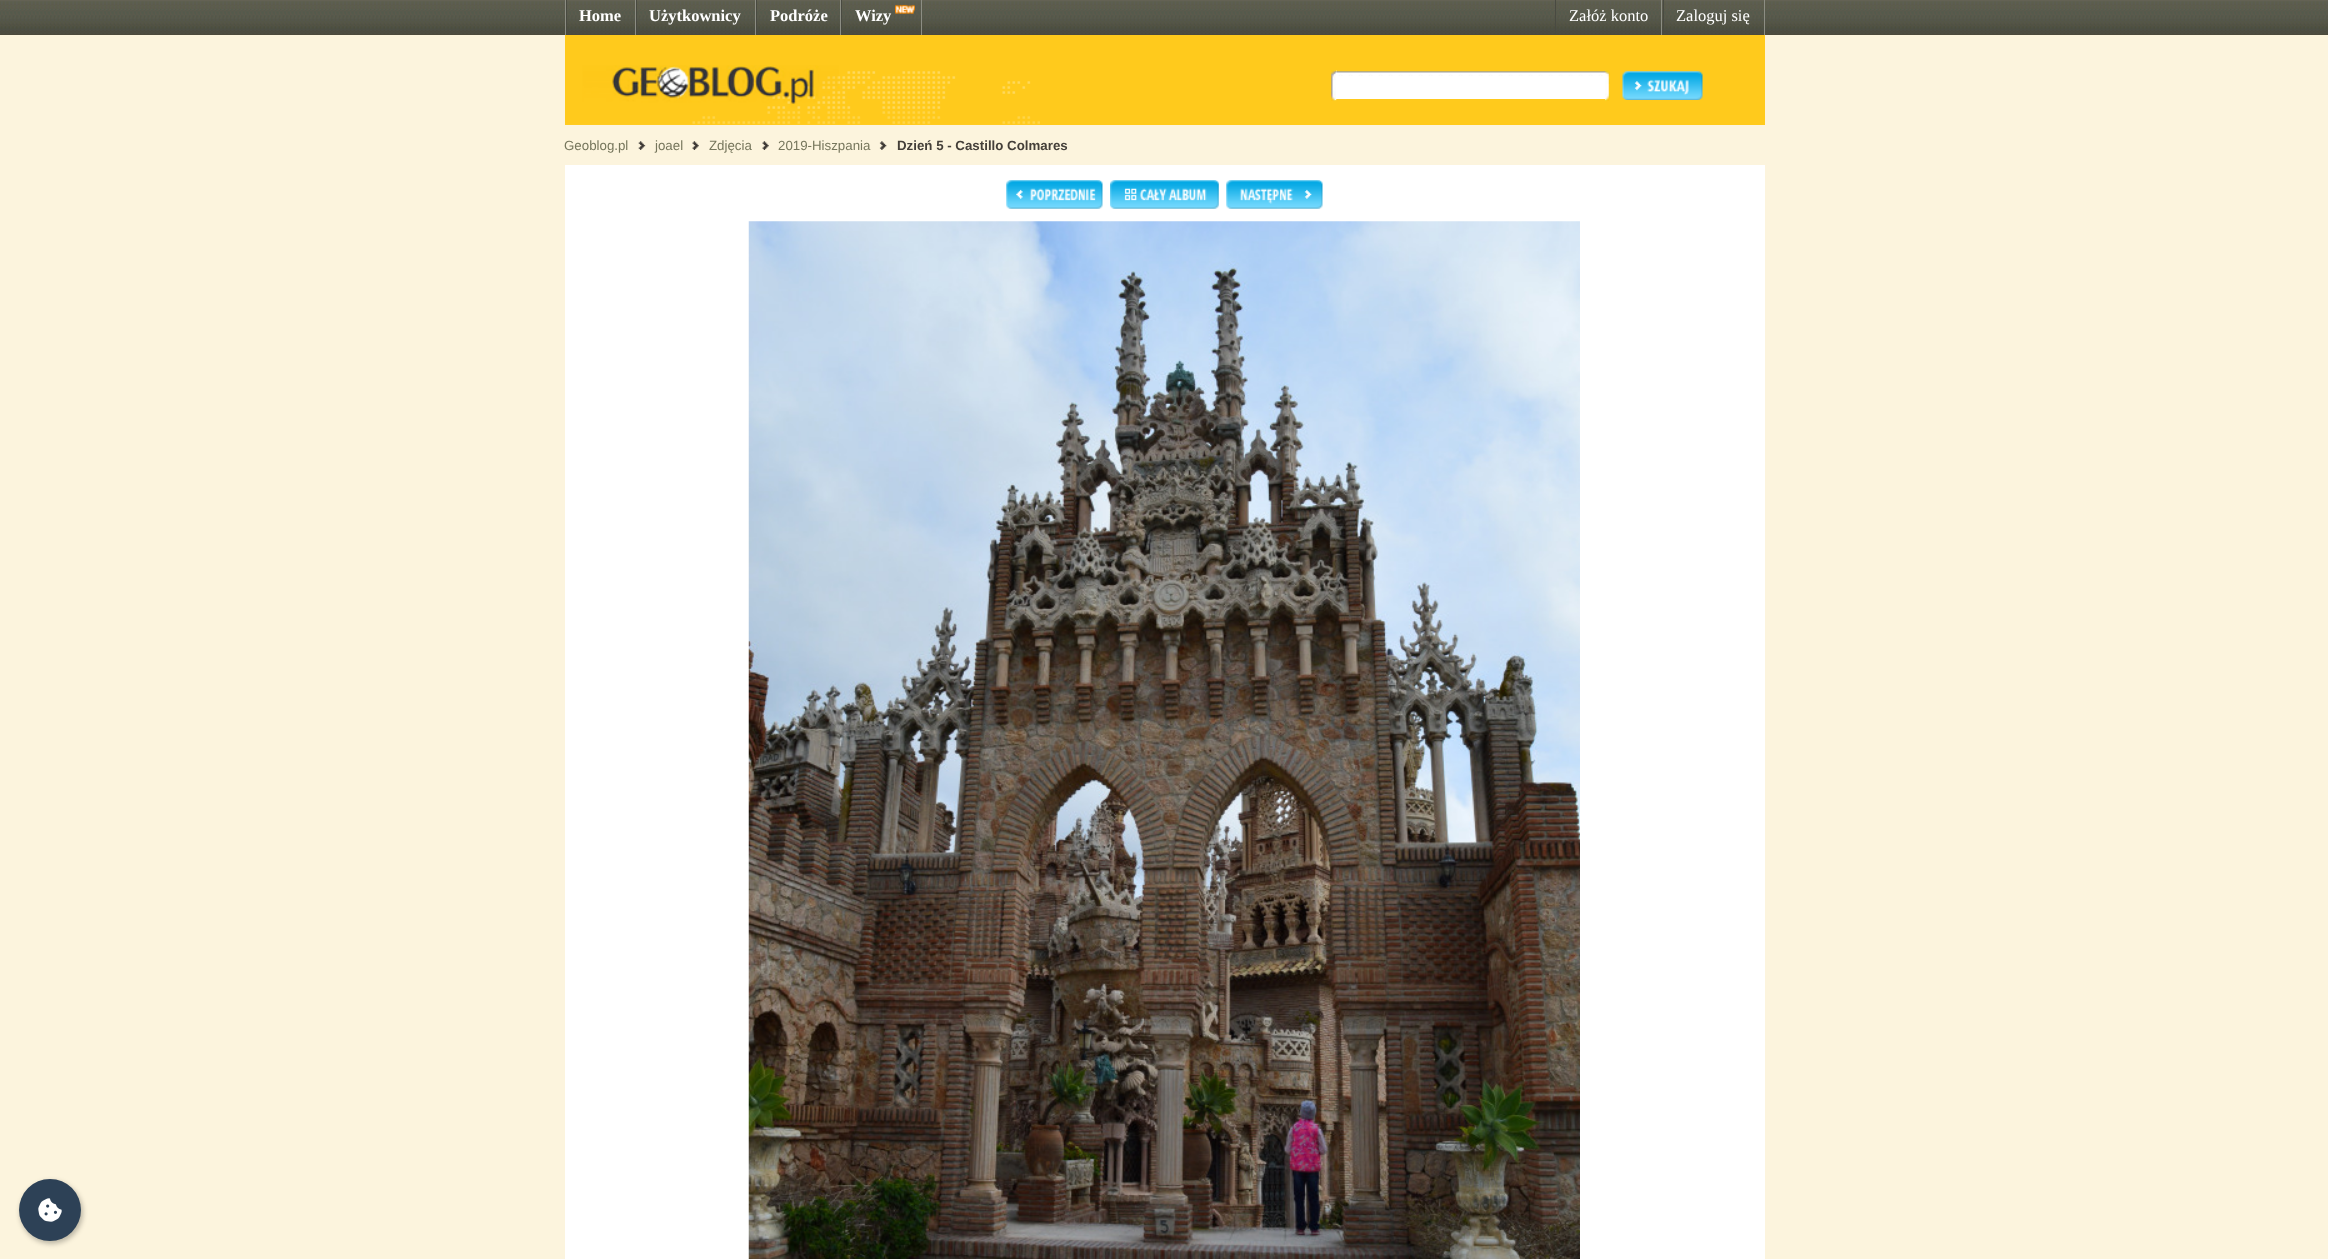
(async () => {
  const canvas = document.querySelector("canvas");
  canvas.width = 2328;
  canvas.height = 1259;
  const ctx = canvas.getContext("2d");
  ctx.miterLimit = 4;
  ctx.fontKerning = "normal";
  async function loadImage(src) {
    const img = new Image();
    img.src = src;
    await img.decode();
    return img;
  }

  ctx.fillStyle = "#fcf4dd";
  ctx.fillRect(0, 0, 2328, 1259);
  ctx.drawImage(await loadImage("img/1.png"), 0, 0, 2328, 35);
  for (const [x, y, w, h, color] of [
    [565, 0, 1, 35, "#8c8d83"],
    [635, 0, 1, 35, "#8c8d83"],
    [566, 0, 1, 35, "#494a41"],
    [755, 0, 1, 35, "#8c8d83"],
    [636, 0, 1, 35, "#494a41"],
    [840, 0, 1, 35, "#8c8d83"],
    [756, 0, 1, 35, "#494a41"],
    [921, 0, 1, 35, "#8c8d83"],
    [841, 0, 1, 35, "#494a41"],
  ]) {
    ctx.fillStyle = color;
    ctx.fillRect(x, y, w, h);
  }
  ctx.drawImage(await loadImage("img/2.png"), 895, 4, 20, 10);
  for (const [x, y, w, h, color] of [
    [1661, 0, 1, 35, "#8c8d83"],
    [1555, 0, 1, 35, "#494a41"],
    [1764, 0, 1, 35, "#8c8d83"],
    [1663, 0, 1, 35, "#494a41"],
    [565, 35, 1200, 90, "#ffca1c"],
  ]) {
    ctx.fillStyle = color;
    ctx.fillRect(x, y, w, h);
  }
  ctx.drawImage(await loadImage("img/3.png"), 565, 65, 475, 60);
  ctx.drawImage(await loadImage("img/4.png"), 1331, 70, 6, 31);
  ctx.fillStyle = "#ffffff";
  ctx.fillRect(1336, 70, 269, 29);
  ctx.drawImage(await loadImage("img/5.png"), 1336, 70, 269, 6);
  ctx.drawImage(await loadImage("img/6.png"), 1605, 70, 5, 31);
  ctx.drawImage(await loadImage("img/7.png"), 1622, 71, 81, 29);
  ctx.drawImage(await loadImage("img/8.png"), 638, 141, 8, 9);
  ctx.drawImage(await loadImage("img/9.png"), 692, 141, 7, 9);
  ctx.drawImage(await loadImage("img/10.png"), 762, 141, 7, 9);
  ctx.drawImage(await loadImage("img/11.png"), 879, 141, 8, 9);
  ctx.fillRect(565, 165, 1200, 1094);
  ctx.drawImage(await loadImage("img/12.png"), 1006, 180, 97, 29);
  ctx.drawImage(await loadImage("img/13.png"), 1110, 180, 109, 29);
  ctx.drawImage(await loadImage("img/14.png"), 1226, 180, 97, 29);
  ctx.drawImage(await loadImage("img/15.png"), 748, 221, 832, 1038);
  ctx.fillStyle = "rgba(0, 0, 0, 0.25)";
  ctx.filter = "blur(2.5px)";
  ctx.beginPath();
  ctx.roundRect(20, 1181, 63, 63, 31.5);
  ctx.fill();
  ctx.filter = "none";
  ctx.fillStyle = "#2d4156";
  ctx.beginPath();
  ctx.arc(50, 1210, 31, 0, Math.PI * 2);
  ctx.fill();
  ctx.drawImage(await loadImage("img/16.png"), 38, 1198, 24, 24);
  ctx.font = "bold 16.5px Liberation Serif";
  ctx.fillStyle = "#ffffff";
  for (const [text, x, y] of [
    ["Home", 579, 21],
    ["Użytkownicy", 649, 21],
    ["Podróże", 770, 21],
    ["Wizy", 855, 21],
  ]) {
    ctx.fillText(text, x, y);
  }
  ctx.font = "16.5px Liberation Serif";
  ctx.fillText("Załóż konto", 1569, 21);
  ctx.fillText("Zaloguj się", 1676, 21);
  ctx.font = "13.3px Liberation Sans";
  ctx.fillStyle = "#76765c";
  for (const [text, x, y] of [
    ["Geoblog.pl", 564, 150],
    ["joael", 655, 150],
    ["Zdjęcia", 709, 150],
    ["2019-Hiszpania", 778, 150],
  ]) {
    ctx.fillText(text, x, y);
  }
  ctx.font = "bold 13.3px Liberation Sans";
  ctx.fillStyle = "#443f39";
  ctx.fillText("Dzień 5 - Castillo Colmares", 897, 150);
})();
